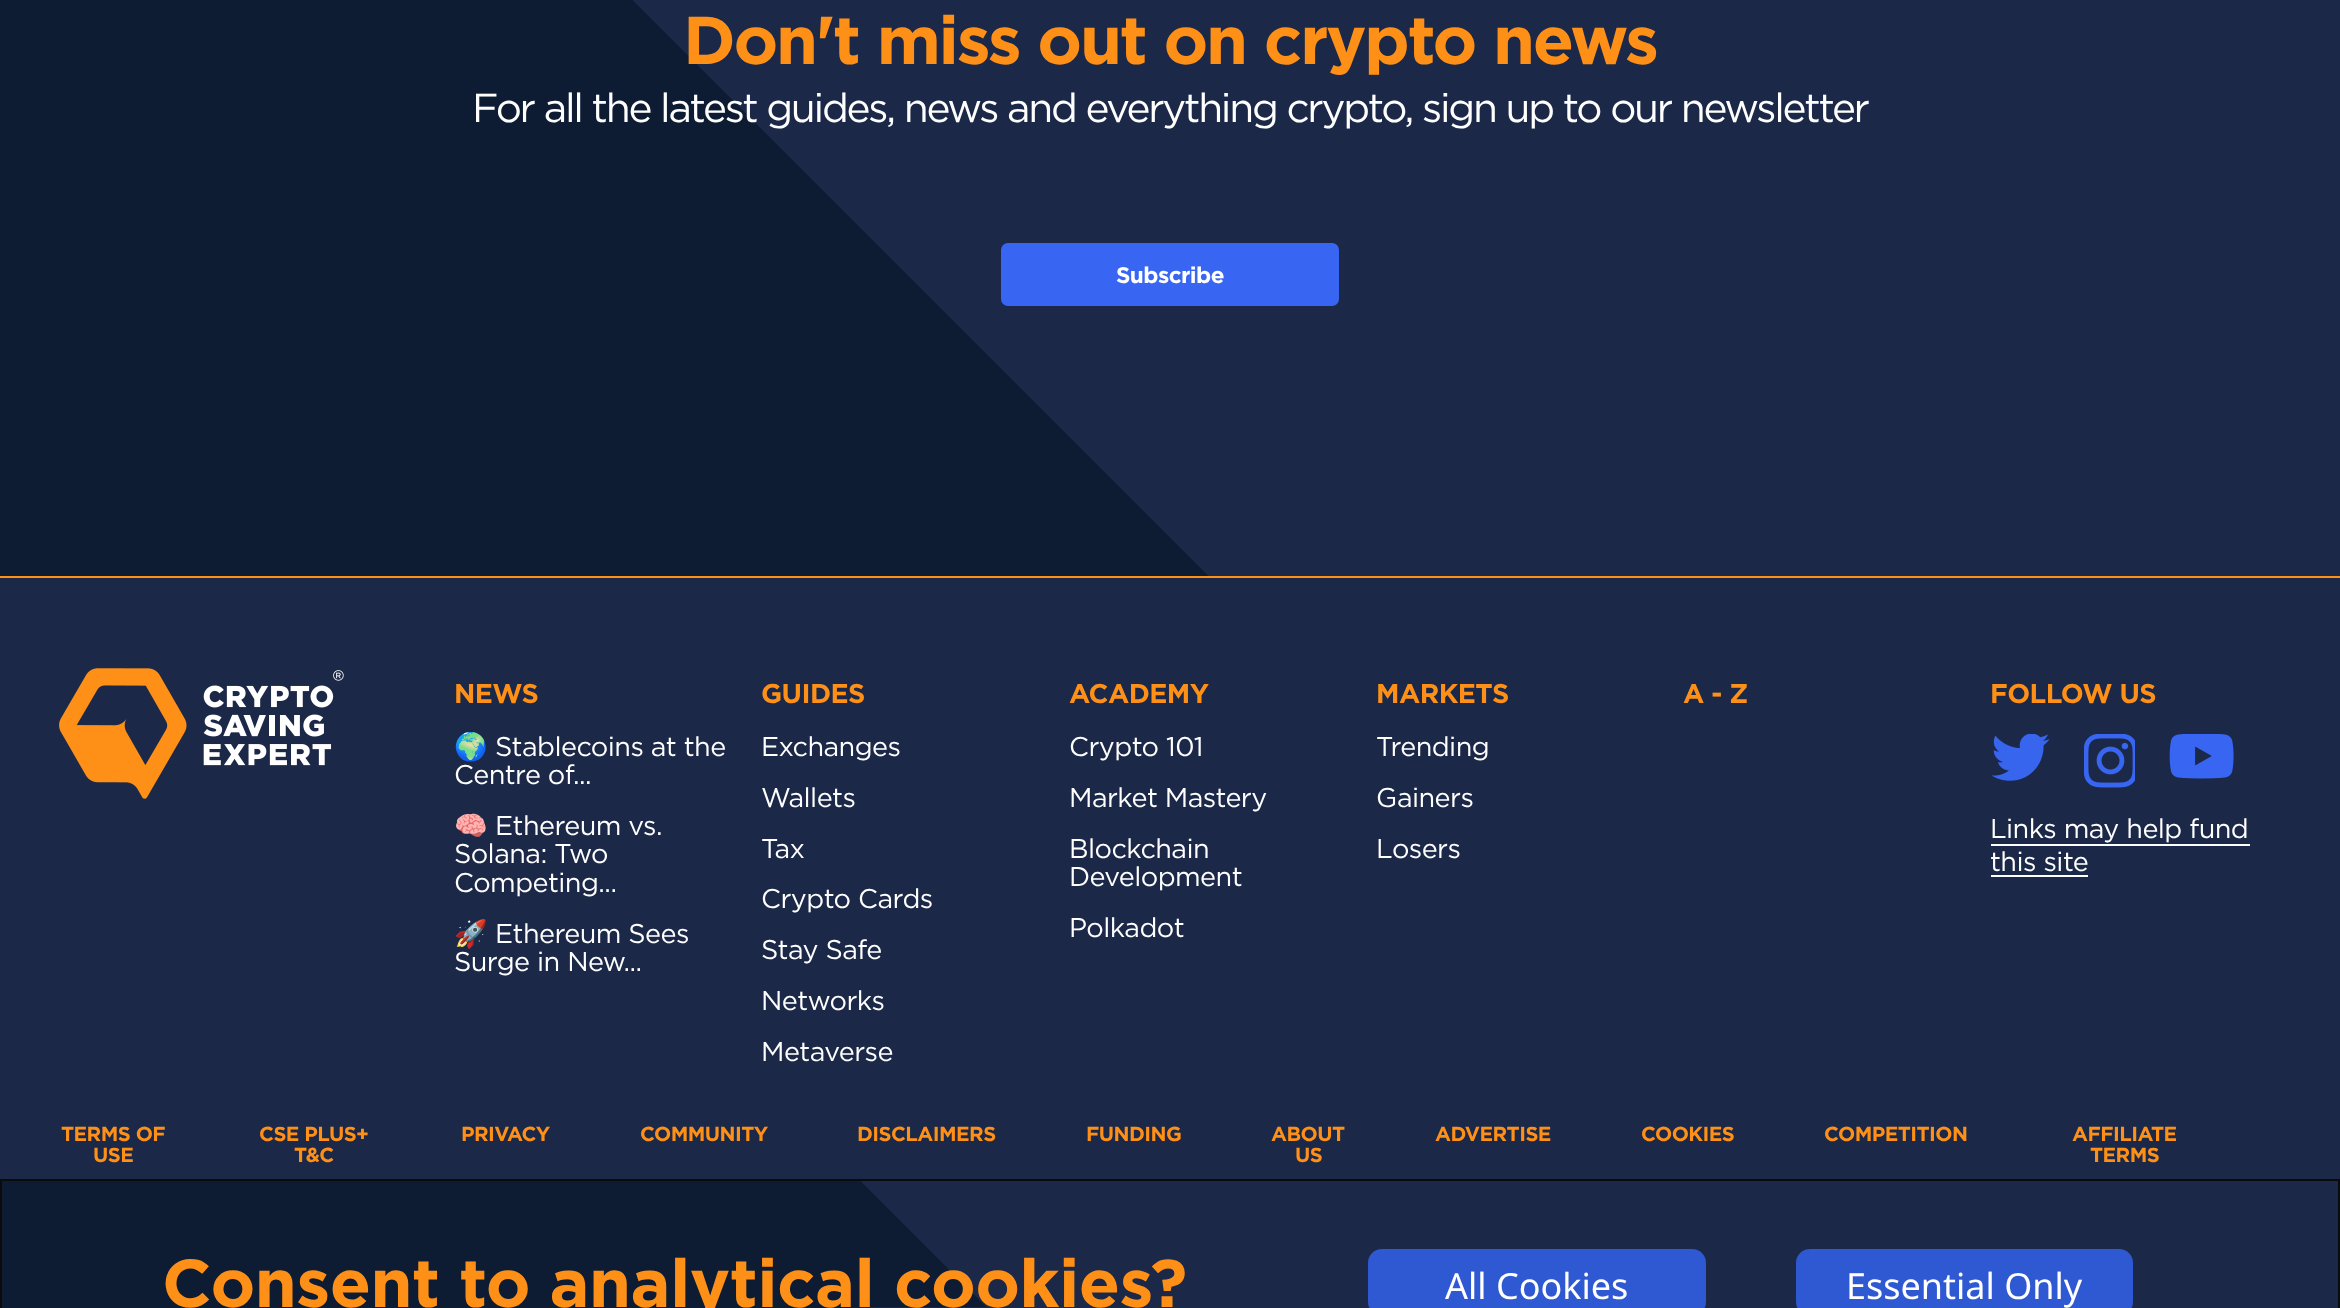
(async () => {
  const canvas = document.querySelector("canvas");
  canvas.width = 2340;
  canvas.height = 1308;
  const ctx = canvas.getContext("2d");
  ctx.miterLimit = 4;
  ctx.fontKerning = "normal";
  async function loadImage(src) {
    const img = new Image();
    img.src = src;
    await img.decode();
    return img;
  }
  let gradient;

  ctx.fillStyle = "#1b2848";
  ctx.fillRect(0, 0, 2340, 1308);
  gradient = ctx.createLinearGradient(415, 991, 1925, -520);
  gradient.addColorStop(0.4, "#0d1c33");
  gradient.addColorStop(0.4, "#1b2848");
  ctx.fillStyle = gradient;
  ctx.fillRect(0, 0, 1208, 576);
  ctx.fillStyle = "#3866f2";
  ctx.beginPath();
  ctx.roundRect(1002, 244, 336, 61, 6);
  ctx.fill();
  ctx.strokeStyle = "#3866f2";
  ctx.lineWidth = 2;
  ctx.stroke();
  ctx.fillStyle = "#ff9017";
  ctx.fillRect(0, 576, 2340, 2);
  ctx.drawImage(await loadImage("img/1.png"), 59, 668, 285, 131);
  ctx.drawImage(await loadImage("img/2.png"), 1991, 734, 59, 47);
  ctx.drawImage(await loadImage("img/3.png"), 2084, 734, 51, 54);
  ctx.drawImage(await loadImage("img/4.png"), 2169, 734, 65, 45);
  ctx.fillStyle = "#ffffff";
  ctx.fillRect(1991, 844, 259, 2);
  ctx.fillRect(1991, 875, 97, 2);
  gradient = ctx.createLinearGradient(555, 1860, 1785, 629);
  gradient.addColorStop(0.4, "#0d1c33");
  gradient.addColorStop(0.4, "#1b2848");
  ctx.fillStyle = gradient;
  ctx.fillRect(2, 1181, 984, 126);
  gradient = ctx.createLinearGradient(555, 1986, 1785, 755);
  gradient.addColorStop(0.4, "#0d1c33");
  gradient.addColorStop(0.4, "#1b2848");
  ctx.fillStyle = gradient;
  ctx.fillRect(2, 1307, 859, 1);
  ctx.strokeStyle = "#0b0b0b";
  ctx.strokeRect(1, 1180, 2338, 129);
  ctx.fillStyle = "#2f58d3";
  ctx.beginPath();
  ctx.roundRect(1368, 1249, 338, 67, 14);
  ctx.fill();
  ctx.beginPath();
  ctx.roundRect(1796, 1249, 337, 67, 14);
  ctx.fill();
  ctx.letterSpacing = "-2.25px";
  ctx.font = "bold 67.5px Gotham";
  ctx.fillStyle = "#ff9017";
  ctx.fillText("Don't miss out on crypto news", 683, 64);
  ctx.font = "40.5px Gotham";
  ctx.fillStyle = "#ffffff";
  ctx.fillText("For all the latest guides, news and everything crypto, sign up to our newsletter", 472, 122);
  ctx.letterSpacing = "-0.55px";
  ctx.font = "bold 22.5px Gotham";
  ctx.fillText("Subscribe", 1116, 283);
  ctx.font = "bold 27px Gotham";
  ctx.fillStyle = "#ff9017";
  ctx.fillText("NEWS", 454, 703);
  ctx.font = "27px Noto Color Emoji";
  ctx.fillStyle = "#ffffff";
  ctx.fillText("🌍", 454, 756);
  ctx.font = "27px Gotham";
  ctx.fillText("Stablecoins at the", 495, 756);
  ctx.fillText("Centre of...", 454, 784);
  ctx.font = "27px Noto Color Emoji";
  ctx.fillText("🧠", 454, 835);
  ctx.font = "27px Gotham";
  for (const [text, x, y] of [
    ["Ethereum vs.", 495, 835],
    ["Solana: Two", 454, 863],
    ["Competing...", 454, 892],
  ]) {
    ctx.fillText(text, x, y);
  }
  ctx.font = "27px Noto Color Emoji";
  ctx.fillText("🚀", 454, 943);
  ctx.font = "27px Gotham";
  ctx.fillText("Ethereum Sees", 495, 943);
  ctx.fillText("Surge in New...", 454, 971);
  ctx.font = "bold 27px Gotham";
  ctx.fillStyle = "#ff9017";
  ctx.fillText("GUIDES", 761, 703);
  ctx.font = "27px Gotham";
  ctx.fillStyle = "#ffffff";
  for (const [text, x, y] of [
    ["Exchanges", 761, 756],
    ["Wallets", 761, 807],
    ["Tax", 761, 858],
    ["Crypto Cards", 761, 908],
    ["Stay Safe", 761, 959],
    ["Networks", 761, 1010],
    ["Metaverse", 761, 1061],
  ]) {
    ctx.fillText(text, x, y);
  }
  ctx.font = "bold 27px Gotham";
  ctx.fillStyle = "#ff9017";
  ctx.fillText("ACADEMY", 1069, 703);
  ctx.font = "27px Gotham";
  ctx.fillStyle = "#ffffff";
  for (const [text, x, y] of [
    ["Crypto 101", 1069, 756],
    ["Market Mastery", 1069, 807],
    ["Blockchain", 1069, 858],
    ["Development", 1069, 886],
    ["Polkadot", 1069, 937],
  ]) {
    ctx.fillText(text, x, y);
  }
  ctx.font = "bold 27px Gotham";
  ctx.fillStyle = "#ff9017";
  ctx.fillText("MARKETS", 1376, 703);
  ctx.font = "27px Gotham";
  ctx.fillStyle = "#ffffff";
  for (const [text, x, y] of [
    ["Trending", 1376, 756],
    ["Gainers", 1376, 807],
    ["Losers", 1376, 858],
  ]) {
    ctx.fillText(text, x, y);
  }
  ctx.font = "bold 27px Gotham";
  ctx.fillStyle = "#ff9017";
  ctx.fillText("A - Z", 1683, 703);
  ctx.fillText("FOLLOW US", 1990, 703);
  ctx.font = "27px Gotham";
  ctx.fillStyle = "#ffffff";
  ctx.fillText("Links may help fund", 1990, 838);
  ctx.fillText("this site", 1990, 871);
  ctx.font = "bold 20.25px Gotham";
  ctx.fillStyle = "#ff9017";
  for (const [text, x, y] of [
    ["TERMS OF", 61, 1141],
    ["USE", 93, 1162],
    ["CSE PLUS+", 259, 1141],
    ["T&C", 294, 1162],
    ["PRIVACY", 461, 1141],
    ["COMMUNITY", 640, 1141],
    ["DISCLAIMERS", 857, 1141],
    ["FUNDING", 1086, 1141],
    ["ABOUT", 1271, 1141],
    ["US", 1295, 1162],
    ["ADVERTISE", 1435, 1141],
    ["COOKIES", 1641, 1141],
    ["COMPETITION", 1824, 1141],
    ["AFFILIATE", 2072, 1141],
    ["TERMS", 2090, 1162],
  ]) {
    ctx.fillText(text, x, y);
  }
  ctx.font = "bold 67.5px Gotham";
  ctx.fillText("Consent to analytical cookies?", 162, 1307);
  ctx.letterSpacing = "0px";
  ctx.font = "36px Noto Sans";
  ctx.fillStyle = "#ffffff";
  ctx.fillText("All Cookies", 1445, 1299);
  ctx.fillText("Essential Only", 1846, 1299);
})();
